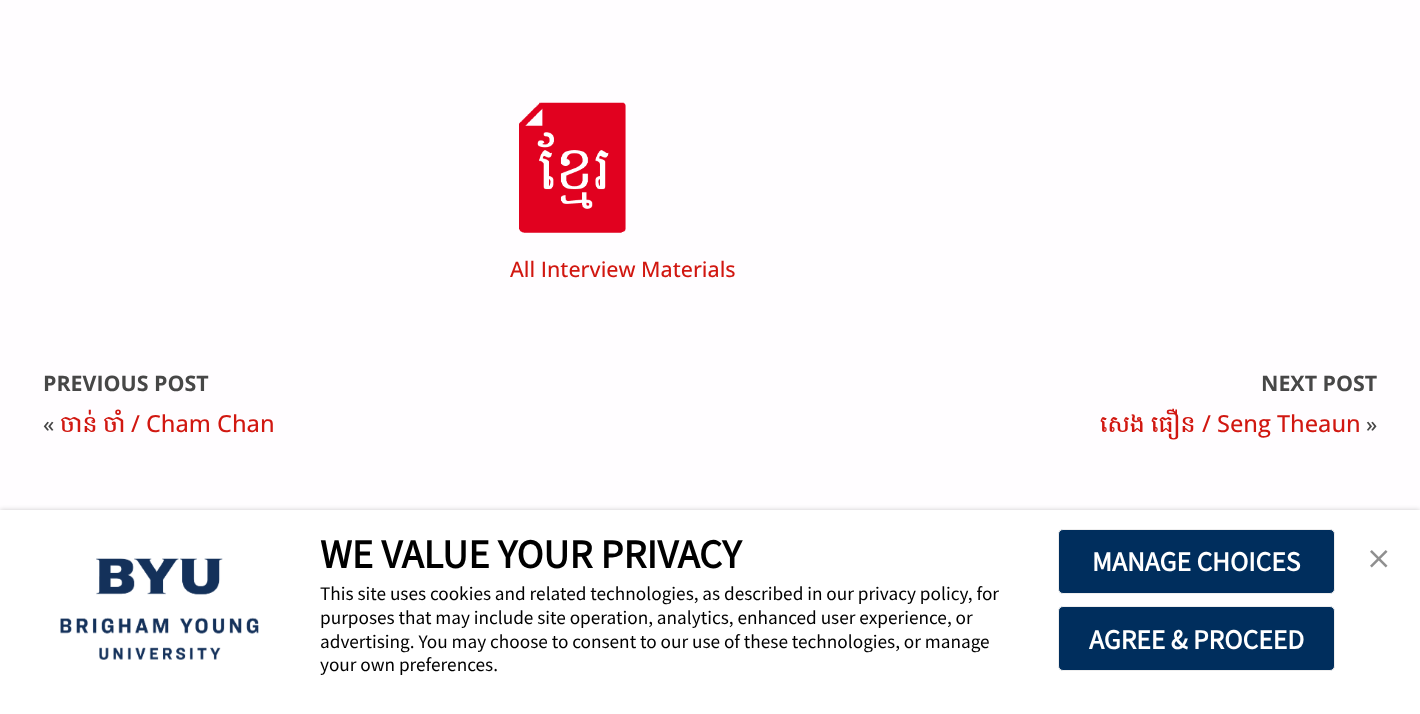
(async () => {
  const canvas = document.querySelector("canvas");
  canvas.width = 1420;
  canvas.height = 714;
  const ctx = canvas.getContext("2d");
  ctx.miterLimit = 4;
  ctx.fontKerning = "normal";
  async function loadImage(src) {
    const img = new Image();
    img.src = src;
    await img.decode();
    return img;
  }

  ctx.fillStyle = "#fffdff";
  ctx.fillRect(0, 0, 1420, 714);
  ctx.drawImage(await loadImage("img/1.png"), 519, 102, 107, 131);
  ctx.fillStyle = "rgba(0, 0, 0, 0.2)";
  ctx.filter = "blur(2.5px)";
  ctx.beginPath();
  ctx.rect(0, 510, 1420, 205);
  ctx.fill();
  ctx.filter = "none";
  ctx.fillStyle = "#ffffff";
  ctx.fillRect(0, 510, 1420, 204);
  ctx.drawImage(await loadImage("img/2.png"), 60, 558, 199, 102);
  ctx.drawImage(await loadImage("img/3.png"), 1370, 550, 18, 18);
  ctx.fillStyle = "#002e5d";
  ctx.beginPath();
  ctx.roundRect(1058.5, 529.5, 276, 64, 4.5);
  ctx.fill();
  ctx.strokeStyle = "#eeeeee";
  ctx.stroke();
  ctx.beginPath();
  ctx.roundRect(1058.5, 606.5, 276, 64, 4.5);
  ctx.fill();
  ctx.stroke();
  ctx.font = "500 21.4px Open Sans";
  ctx.fillStyle = "#d11710";
  ctx.fillText("All Interview Materials", 510, 277);
  ctx.font = "bold 21.4px Open Sans";
  ctx.fillStyle = "#474747";
  ctx.fillText("PREVIOUS POST", 43, 391);
  ctx.font = "500 21.4px Open Sans";
  ctx.fillText("«", 43, 432);
  ctx.font = "500 23.5px Hanuman";
  ctx.fillStyle = "#d11710";
  ctx.fillText("ចាន់", 60, 432);
  ctx.fillText("ចាំ", 103, 432);
  ctx.font = "500 23.5px Open Sans";
  ctx.fillText("/ Cham Chan", 131, 432);
  ctx.font = "bold 21.4px Open Sans";
  ctx.fillStyle = "#474747";
  ctx.fillText("NEXT POST", 1261, 391);
  ctx.font = "500 23.5px Hanuman";
  ctx.fillStyle = "#d11710";
  ctx.fillText("សេង", 1100, 432);
  ctx.fillText("ធឿន", 1151, 432);
  ctx.font = "500 23.5px Open Sans";
  ctx.fillText("/ Seng Theaun", 1202, 432);
  ctx.font = "500 21.4px Open Sans";
  ctx.fillStyle = "#474747";
  ctx.fillText("»", 1366, 432);
  ctx.font = "bold 40.5px Source Sans Pro";
  ctx.fillStyle = "#000000";
  ctx.fillText("WE VALUE YOUR PRIVACY", 320, 568);
  ctx.font = "19.25px Source Sans Pro";
  for (const [text, x, y] of [
    ["This site uses cookies and related technologies, as described in our privacy policy, for", 320, 600],
    ["purposes that may include site operation, analytics, enhanced user experience, or", 320, 624],
    ["advertising. You may choose to consent to our use of these technologies, or manage", 320, 648],
    ["your own preferences.", 320, 671],
  ]) {
    ctx.fillText(text, x, y);
  }
  ctx.font = "bold 27.5px Source Sans Pro";
  ctx.fillStyle = "#ffffff";
  ctx.fillText("MANAGE CHOICES", 1092, 571);
  ctx.fillText("AGREE & PROCEED", 1089, 649);
})();
